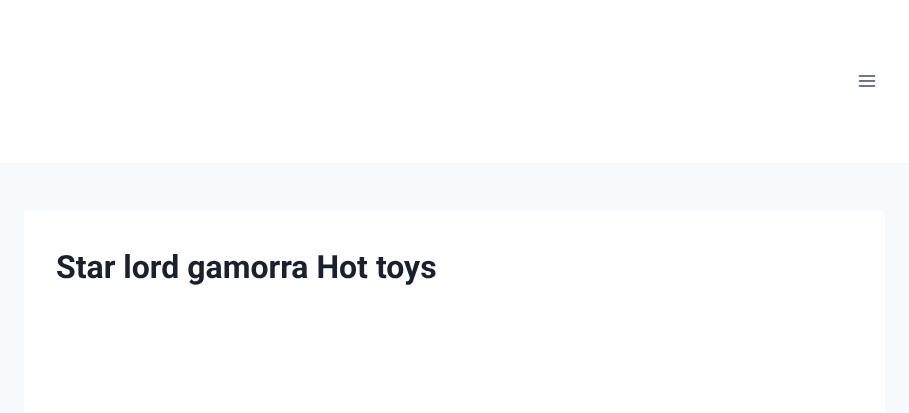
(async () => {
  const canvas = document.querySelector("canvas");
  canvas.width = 909;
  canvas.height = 413;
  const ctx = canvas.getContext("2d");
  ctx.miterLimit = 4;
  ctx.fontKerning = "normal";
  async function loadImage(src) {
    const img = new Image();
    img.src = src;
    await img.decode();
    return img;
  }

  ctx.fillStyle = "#f7fafc";
  ctx.fillRect(0, 0, 909, 413);
  ctx.fillStyle = "#ffffff";
  ctx.fillRect(0, 0, 909, 163);
  ctx.drawImage(await loadImage("img/1.png"), 858, 75, 18, 12);
  ctx.beginPath();
  ctx.roundRect(24, 211, 861, 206, 4);
  ctx.fill();
  ctx.font = "bold 32px Roboto";
  ctx.fillStyle = "#1a202c";
  ctx.fillText("Star lord gamorra Hot toys", 56, 278);
})();
